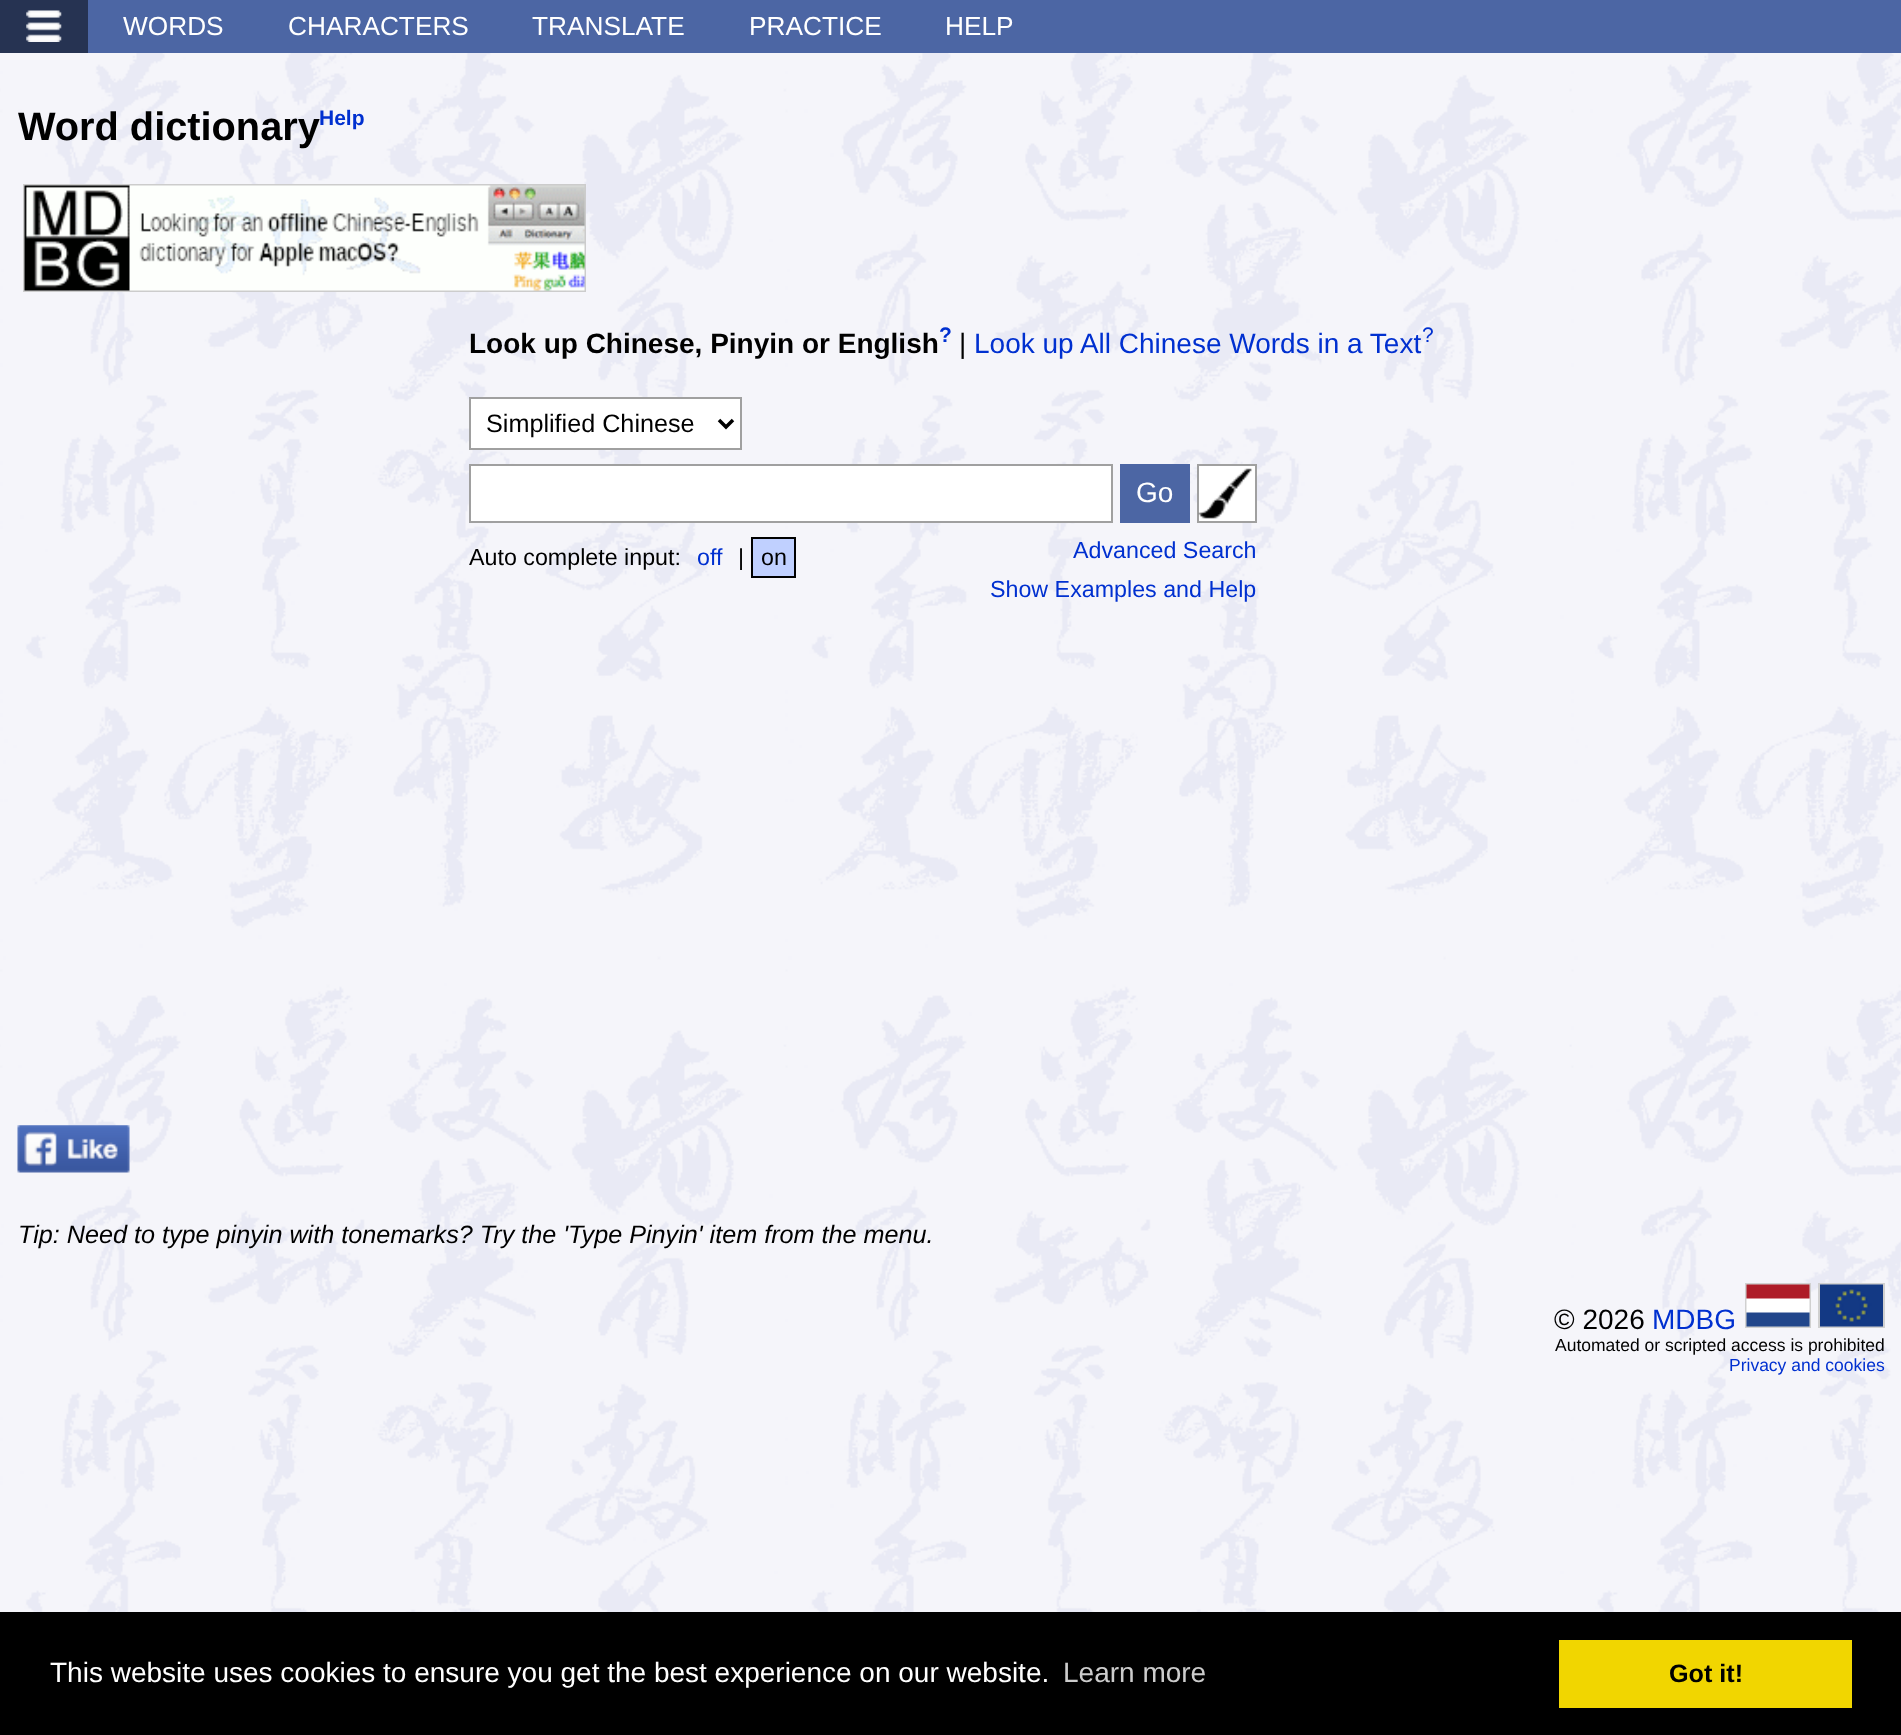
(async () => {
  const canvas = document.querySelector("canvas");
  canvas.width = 1901;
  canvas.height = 1735;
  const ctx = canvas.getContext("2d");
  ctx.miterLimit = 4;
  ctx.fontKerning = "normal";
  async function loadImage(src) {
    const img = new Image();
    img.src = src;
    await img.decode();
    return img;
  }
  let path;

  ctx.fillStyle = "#ffffff";
  ctx.fillRect(0, 0, 1901, 1735);
  ctx.drawImage(await loadImage("img/1.png"), 0, 53, 1901, 1559);
  ctx.fillStyle = "#4c66a4";
  ctx.fillRect(88, 0, 1813, 53);
  ctx.fillStyle = "#263352";
  ctx.fillRect(0, 0, 88, 53);
  ctx.drawImage(await loadImage("img/2.png"), 26, 10, 36, 32);
  ctx.strokeStyle = "#cccccc";
  ctx.lineWidth = 2;
  ctx.strokeRect(24, 185, 561, 106);
  ctx.drawImage(await loadImage("img/3.png"), 24, 185, 561, 106);
  ctx.fillStyle = "#ffffff";
  ctx.beginPath();
  ctx.rect(470, 398, 271, 51);
  ctx.fill();
  ctx.strokeStyle = "#a0a0a0";
  ctx.stroke();
  path = new Path2D("M719 420L726 427L733 420");
  ctx.strokeStyle = "#000000";
  ctx.lineWidth = 3.5;
  ctx.stroke(path);
  ctx.beginPath();
  ctx.rect(470, 465, 642, 57);
  ctx.fill();
  ctx.strokeStyle = "#a0a0a0";
  ctx.lineWidth = 2;
  ctx.stroke();
  ctx.beginPath();
  ctx.rect(1198, 465, 58, 57);
  ctx.fill();
  ctx.stroke();
  ctx.fillStyle = "#4c66a4";
  ctx.fillRect(1120, 464, 70, 59);
  ctx.drawImage(await loadImage("img/4.png"), 1198, 468, 54, 51);
  ctx.fillStyle = "#c0d0ff";
  ctx.beginPath();
  ctx.rect(752, 538, 43, 39);
  ctx.fill();
  ctx.strokeStyle = "#000000";
  ctx.stroke();
  ctx.drawImage(await loadImage("img/5.png"), 17, 1125, 113, 48);
  ctx.strokeStyle = "#d0d0d0";
  ctx.strokeRect(1746, 1284, 64, 43);
  ctx.strokeRect(1819, 1284, 65, 43);
  ctx.drawImage(await loadImage("img/6.png"), 1746, 1284, 64, 43);
  ctx.drawImage(await loadImage("img/7.png"), 1820, 1284, 63, 43);
  ctx.fillStyle = "#000000";
  ctx.fillRect(0, 1612, 1901, 123);
  ctx.fillStyle = "#f1d600";
  ctx.fillRect(1559, 1640, 293, 68);
  ctx.font = "26.25px Liberation Sans";
  ctx.fillStyle = "#ffffff";
  for (const [text, x, y] of [
    ["WORDS", 123, 35],
    ["CHARACTERS", 288, 35],
    ["TRANSLATE", 532, 35],
    ["PRACTICE", 749, 35],
    ["HELP", 945, 35],
  ]) {
    ctx.fillText(text, x, y);
  }
  ctx.font = "bold 39.75px Liberation Sans";
  ctx.fillStyle = "#000000";
  ctx.fillText("Word dictionary", 18, 140);
  ctx.font = "bold 21px Liberation Sans";
  ctx.fillStyle = "#0030d0";
  ctx.fillText("Help", 319, 125);
  ctx.font = "bold 28px Liberation Sans";
  ctx.fillStyle = "#000000";
  ctx.fillText("Look up Chinese, Pinyin or English", 469, 353);
  ctx.font = "bold 21px Liberation Sans";
  ctx.fillStyle = "#0030d0";
  ctx.fillText("?", 939, 342);
  ctx.font = "28px Liberation Sans";
  ctx.fillStyle = "#000000";
  ctx.fillText("|", 959, 353);
  ctx.fillStyle = "#0030d0";
  ctx.fillText("Look up All Chinese Words in a Text", 974, 353);
  ctx.font = "21px Liberation Sans";
  ctx.fillText("?", 1422, 342);
  ctx.font = "25.2px Liberation Sans";
  ctx.fillStyle = "#000000";
  ctx.fillText("Simplified Chinese", 486, 432);
  ctx.font = "28px Liberation Sans";
  ctx.fillStyle = "#ffffff";
  ctx.fillText("Go", 1136, 502);
  ctx.font = "23.25px Liberation Sans";
  ctx.fillStyle = "#000000";
  ctx.fillText("Auto complete input:", 469, 565);
  ctx.fillStyle = "#0030d0";
  ctx.fillText("off", 697, 565);
  ctx.fillStyle = "#000000";
  ctx.fillText("|", 738, 565);
  ctx.fillText("on", 761, 565);
  ctx.fillStyle = "#0030d0";
  ctx.fillText("Advanced Search", 1073, 558);
  ctx.fillText("Show Examples and Help", 990, 597);
  ctx.font = "italic 25.2px Liberation Sans";
  ctx.fillStyle = "#000000";
  ctx.fillText("Tip: Need to type pinyin with tonemarks? Try the 'Type Pinyin' item from the menu.", 18, 1243);
  ctx.font = "28px Liberation Sans";
  ctx.fillText("© 2026", 1554, 1329);
  ctx.fillStyle = "#0030d0";
  ctx.fillText("MDBG", 1652, 1329);
  ctx.font = "17.5px Liberation Sans";
  ctx.fillStyle = "#000000";
  ctx.fillText("Automated or scripted access is prohibited", 1555, 1351);
  ctx.fillStyle = "#0030d0";
  ctx.fillText("Privacy and cookies", 1729, 1371);
  ctx.font = "28px Liberation Sans";
  ctx.fillStyle = "#ffffff";
  ctx.fillText("This website uses cookies to ensure you get the best experience on our website.", 50, 1682);
  ctx.fillStyle = "#cccccc";
  ctx.fillText("Learn more", 1063, 1682);
  ctx.font = "bold 25.2px Liberation Sans";
  ctx.fillStyle = "#000000";
  ctx.fillText("Got it!", 1669, 1682);
})();
